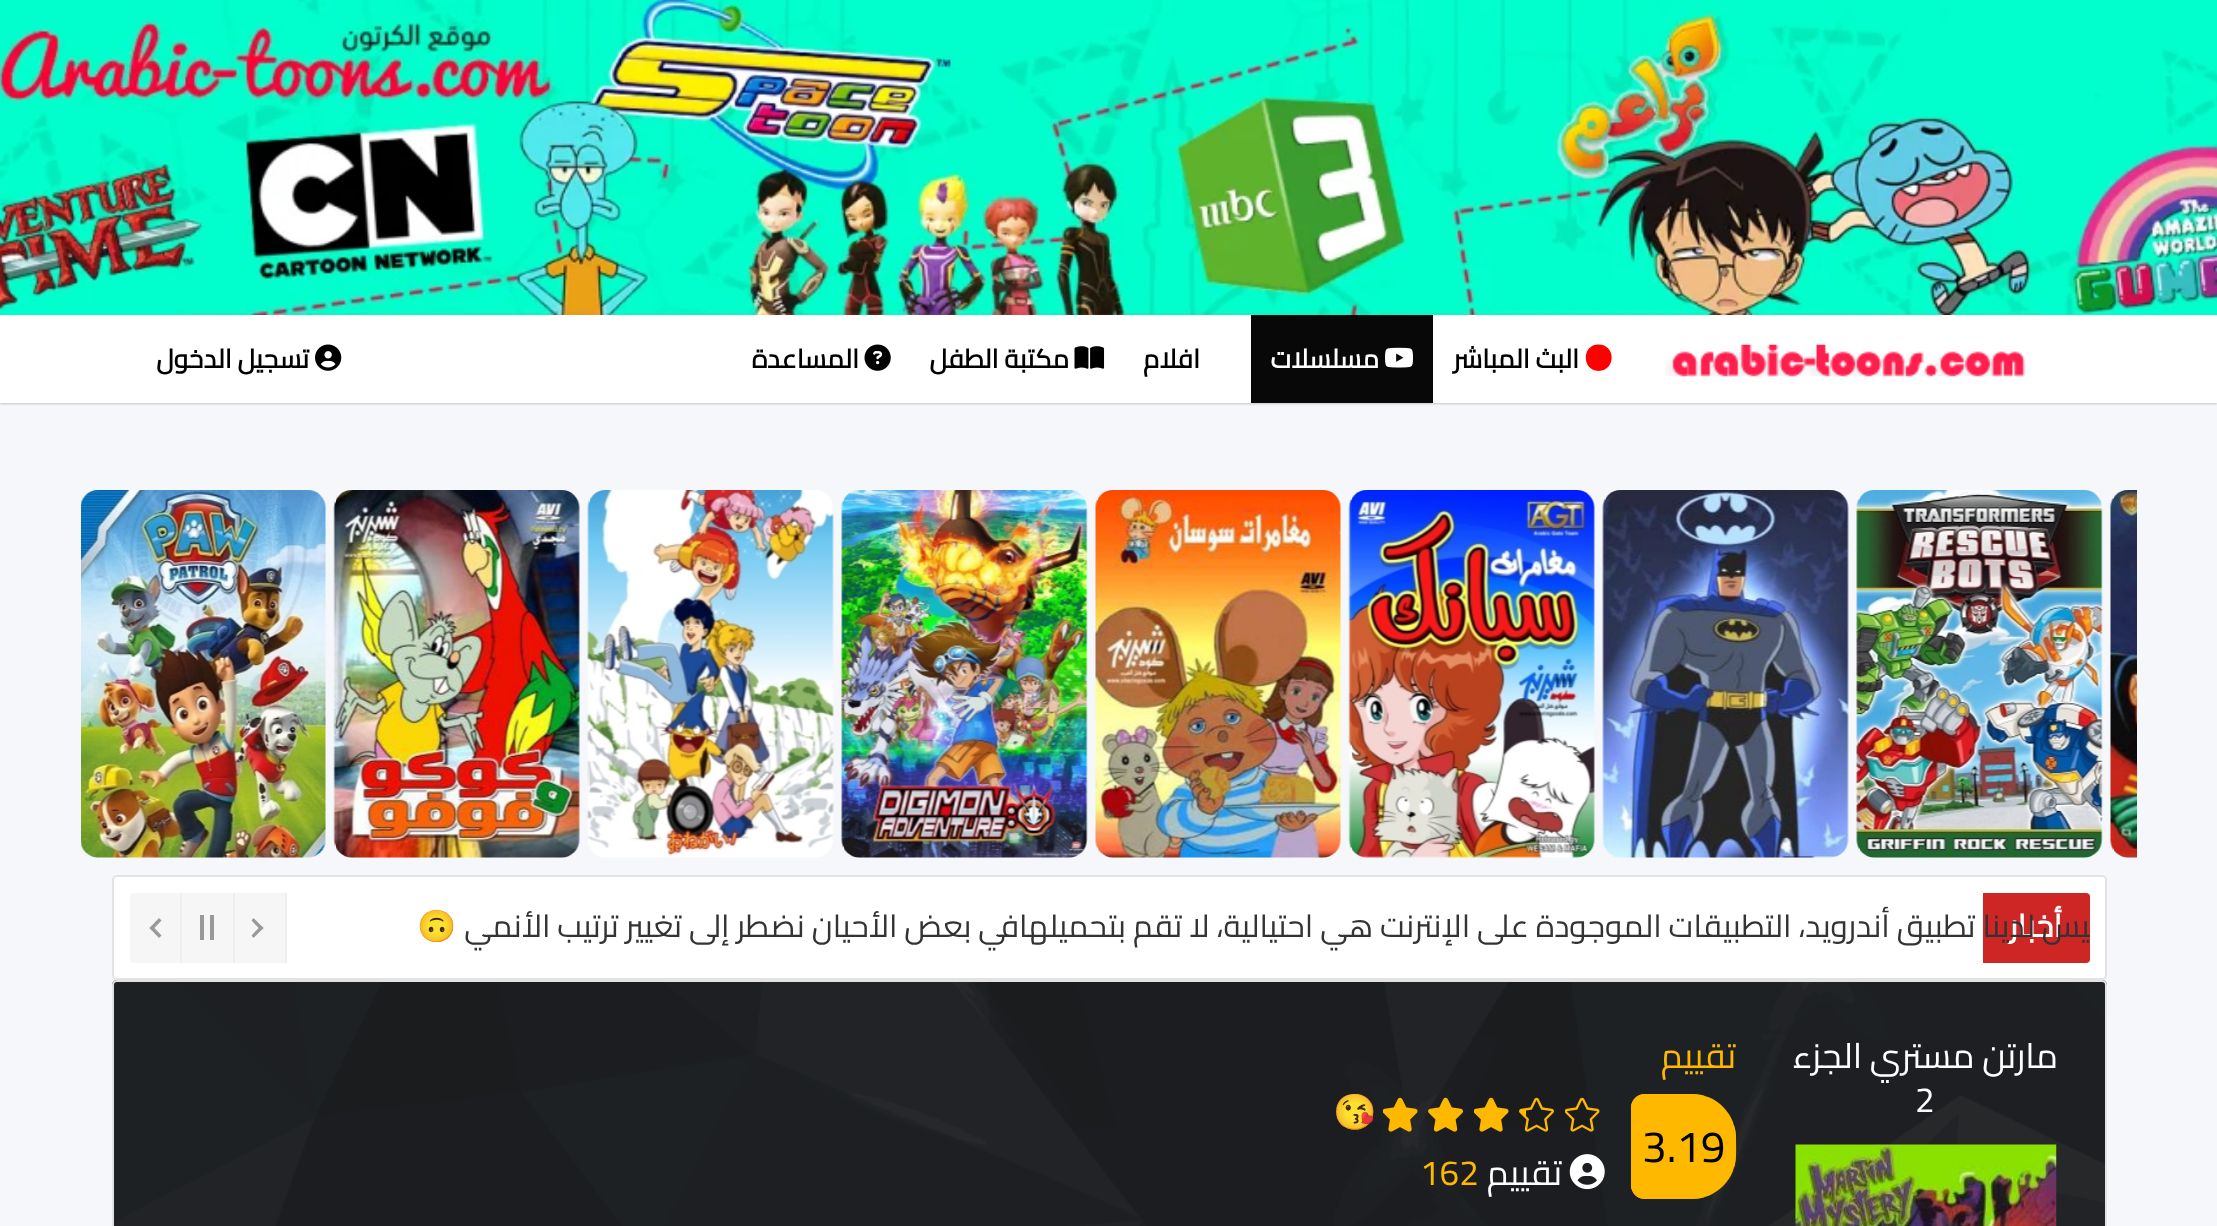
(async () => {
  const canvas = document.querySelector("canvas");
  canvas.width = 2217;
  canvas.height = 1226;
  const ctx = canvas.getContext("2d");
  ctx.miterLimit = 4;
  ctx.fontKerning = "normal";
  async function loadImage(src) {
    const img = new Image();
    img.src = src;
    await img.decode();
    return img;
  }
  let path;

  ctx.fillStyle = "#f5f7fa";
  ctx.fillRect(0, 0, 2217, 1226);
  ctx.drawImage(await loadImage("img/1.png"), 0, 0, 2217, 315);
  ctx.fillStyle = "rgba(0, 0, 0, 0.1)";
  ctx.filter = "blur(1px)";
  ctx.beginPath();
  ctx.rect(0, 317, 2217, 87);
  ctx.fill();
  ctx.filter = "none";
  ctx.filter = "blur(1px)";
  ctx.beginPath();
  ctx.rect(0, 317, 2217, 87);
  ctx.fill();
  ctx.filter = "none";
  ctx.fillStyle = "#ffffff";
  ctx.fillRect(0, 315, 2217, 88);
  ctx.drawImage(await loadImage("img/2.png"), 1665, 344, 361, 33);
  ctx.fillStyle = "#ff0000";
  path = new Path2D("M1598.5 371C1616 370.5 1616 344.5 1598.5 344.5C1581.5 344.5 1581.5 370.5 1598.5 371Z");
  ctx.fill(path);
  ctx.fillStyle = "#080808";
  ctx.fillRect(1251, 315, 182, 88);
  ctx.drawImage(await loadImage("img/3.png"), 1385, 347, 28, 21);
  ctx.drawImage(await loadImage("img/4.png"), 1074, 346, 31, 23);
  ctx.drawImage(await loadImage("img/5.png"), 864, 344, 27, 27);
  ctx.drawImage(await loadImage("img/6.png"), 315, 344, 27, 27);
  ctx.drawImage(await loadImage("img/7.png"), 81, 490, 2056, 368);
  ctx.fillStyle = "#ffffff";
  ctx.beginPath();
  ctx.roundRect(113, 876, 1993, 103, 4);
  ctx.fill();
  ctx.strokeStyle = "#e3e3e3";
  ctx.lineWidth = 2;
  ctx.stroke();
  ctx.fillStyle = "#ce2525";
  ctx.beginPath();
  ctx.roundRect(1983, 893, 107, 70, [0, 4, 4, 0]);
  ctx.fill();
  ctx.fillStyle = "#f6f6f6";
  ctx.fillRect(235, 893, 50, 70);
  ctx.fillStyle = "#eeeeee";
  ctx.fillRect(285, 893, 2, 70);
  ctx.fillStyle = "#999999";
  path = new Path2D("M251.5 920.5L253.5 918L263.5 928L261 930.5Z");
  ctx.fill(path);
  path = new Path2D("M251.5 935.5L261 925.5L263.5 928L253.5 938Z");
  ctx.fill(path);
  for (const [x, y, w, h, color] of [
    [182, 893, 51, 70, "#f6f6f6"],
    [233, 893, 2, 70, "#eeeeee"],
    [210, 915, 4, 25, "#999999"],
    [200, 915, 4, 25, "#999999"],
  ]) {
    ctx.fillStyle = color;
    ctx.fillRect(x, y, w, h);
  }
  ctx.fillStyle = "#f6f6f6";
  ctx.beginPath();
  ctx.roundRect(130, 893, 52, 70, [4, 0, 0, 4]);
  ctx.fill();
  ctx.fillStyle = "#eeeeee";
  ctx.fillRect(180, 893, 2, 70);
  ctx.fillStyle = "#999999";
  path = new Path2D("M161.5 935.5L159 938L149.5 928L152 925.5Z");
  ctx.fill(path);
  path = new Path2D("M161.5 920.5L152 930.5L149.5 928L159 918Z");
  ctx.fill(path);
  ctx.fillStyle = "#1c1e20";
  ctx.beginPath();
  ctx.roundRect(112, 980, 1995, 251, 5);
  ctx.fill();
  ctx.drawImage(await loadImage("img/8.png"), 114, 980, 1991, 246);
  ctx.beginPath();
  ctx.roundRect(113, 981, 1993, 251, 4);
  ctx.stroke();
  ctx.drawImage(await loadImage("img/9.png"), 1795, 1144, 262, 82);
  ctx.fillStyle = "#ffb800";
  ctx.beginPath();
  ctx.roundRect(1631, 1094, 105, 105, [14, 44, 44, 14]);
  ctx.fill();
  path = new Path2D("M1645 1094C1637 1094 1631 1100 1631 1108V1185C1631 1193 1637 1199 1645 1199H1692C1697 1199 1701 1198 1705 1197H1645C1638 1197 1633 1192 1633 1185V1108C1633 1101 1638 1096 1645 1096H1705C1701 1095 1697 1094 1692 1094ZM1736 1138C1736 1133 1735 1129 1734 1125V1168C1737 1158 1736 1148 1736 1138Z");
  ctx.fill(path, "evenodd");
  ctx.drawImage(await loadImage("img/10.png"), 1565, 1097, 35, 35);
  ctx.drawImage(await loadImage("img/11.png"), 1519, 1097, 35, 35);
  ctx.drawImage(await loadImage("img/12.png"), 1474, 1097, 35, 35);
  ctx.drawImage(await loadImage("img/13.png"), 1428, 1097, 35, 35);
  ctx.drawImage(await loadImage("img/14.png"), 1383, 1097, 35, 35);
  ctx.drawImage(await loadImage("img/15.png"), 1569, 1154, 36, 36);
  ctx.direction = "rtl";
  ctx.font = "bold 26.25px Cairo";
  ctx.fillStyle = "#000000";
  ctx.fillText("البث المباشر", 1579, 368);
  ctx.fillStyle = "#ffffff";
  ctx.fillText("مسلسلات", 1379, 368);
  ctx.fillStyle = "#000000";
  for (const [text, x, y] of [
    ["افلام", 1200, 368],
    ["مكتبة الطفل", 1069, 368],
    ["المساعدة", 859, 368],
    ["تسجيل الدخول", 309, 368],
  ]) {
    ctx.fillText(text, x, y);
  }
  ctx.font = "bold 31.5px Cairo";
  ctx.fillStyle = "#ffffff";
  ctx.fillText("أخبار", 2062, 937);
  ctx.save();
  ctx.beginPath();
  ctx.roundRect(130, 893, 1960, 70, 4);
  ctx.clip();
  ctx.font = "31.5px Cairo";
  ctx.fillStyle = "#333333";
  ctx.fillText("ليس لدينا تطبيق أندرويد، التطبيقات الموجودة على الإنترنت هي احتيالية، لا تقم بتحميلها", 2099, 937);
  ctx.restore();
  ctx.font = "31.5px Cairo";
  ctx.fillStyle = "#333333";
  ctx.fillText("في بعض الأحيان نضطر إلى تغيير ترتيب الأنمي", 1019, 937);
  ctx.font = "31.5px Noto Color Emoji";
  ctx.fillText("🙃", 457, 937);
  ctx.font = "35px Cairo";
  ctx.fillStyle = "#ffffff";
  ctx.fillText("مارتن مستري الجزء", 2058, 1068);
  ctx.direction = "ltr";
  ctx.fillText("2", 1915, 1112);
  ctx.direction = "rtl";
  ctx.fillStyle = "#ffb800";
  ctx.fillText("تقييم", 1736, 1068);
  ctx.direction = "ltr";
  ctx.font = "44px Cairo";
  ctx.fillStyle = "#000000";
  ctx.fillText("3.19", 1642, 1162);
  ctx.save();
  ctx.beginPath();
  ctx.roundRect(1290, 1094, 446, 105, 44);
  ctx.clip();
  ctx.font = "35px Noto Color Emoji";
  ctx.fillStyle = "#ffb800";
  ctx.fillText("😘", 1333, 1124);
  ctx.restore();
  ctx.direction = "rtl";
  ctx.font = "35px Cairo";
  ctx.fillStyle = "#ffffff";
  ctx.fillText("تقييم", 1562, 1185);
  ctx.direction = "ltr";
  ctx.fillStyle = "#ffb800";
  ctx.fillText("162", 1420, 1185);
})();
